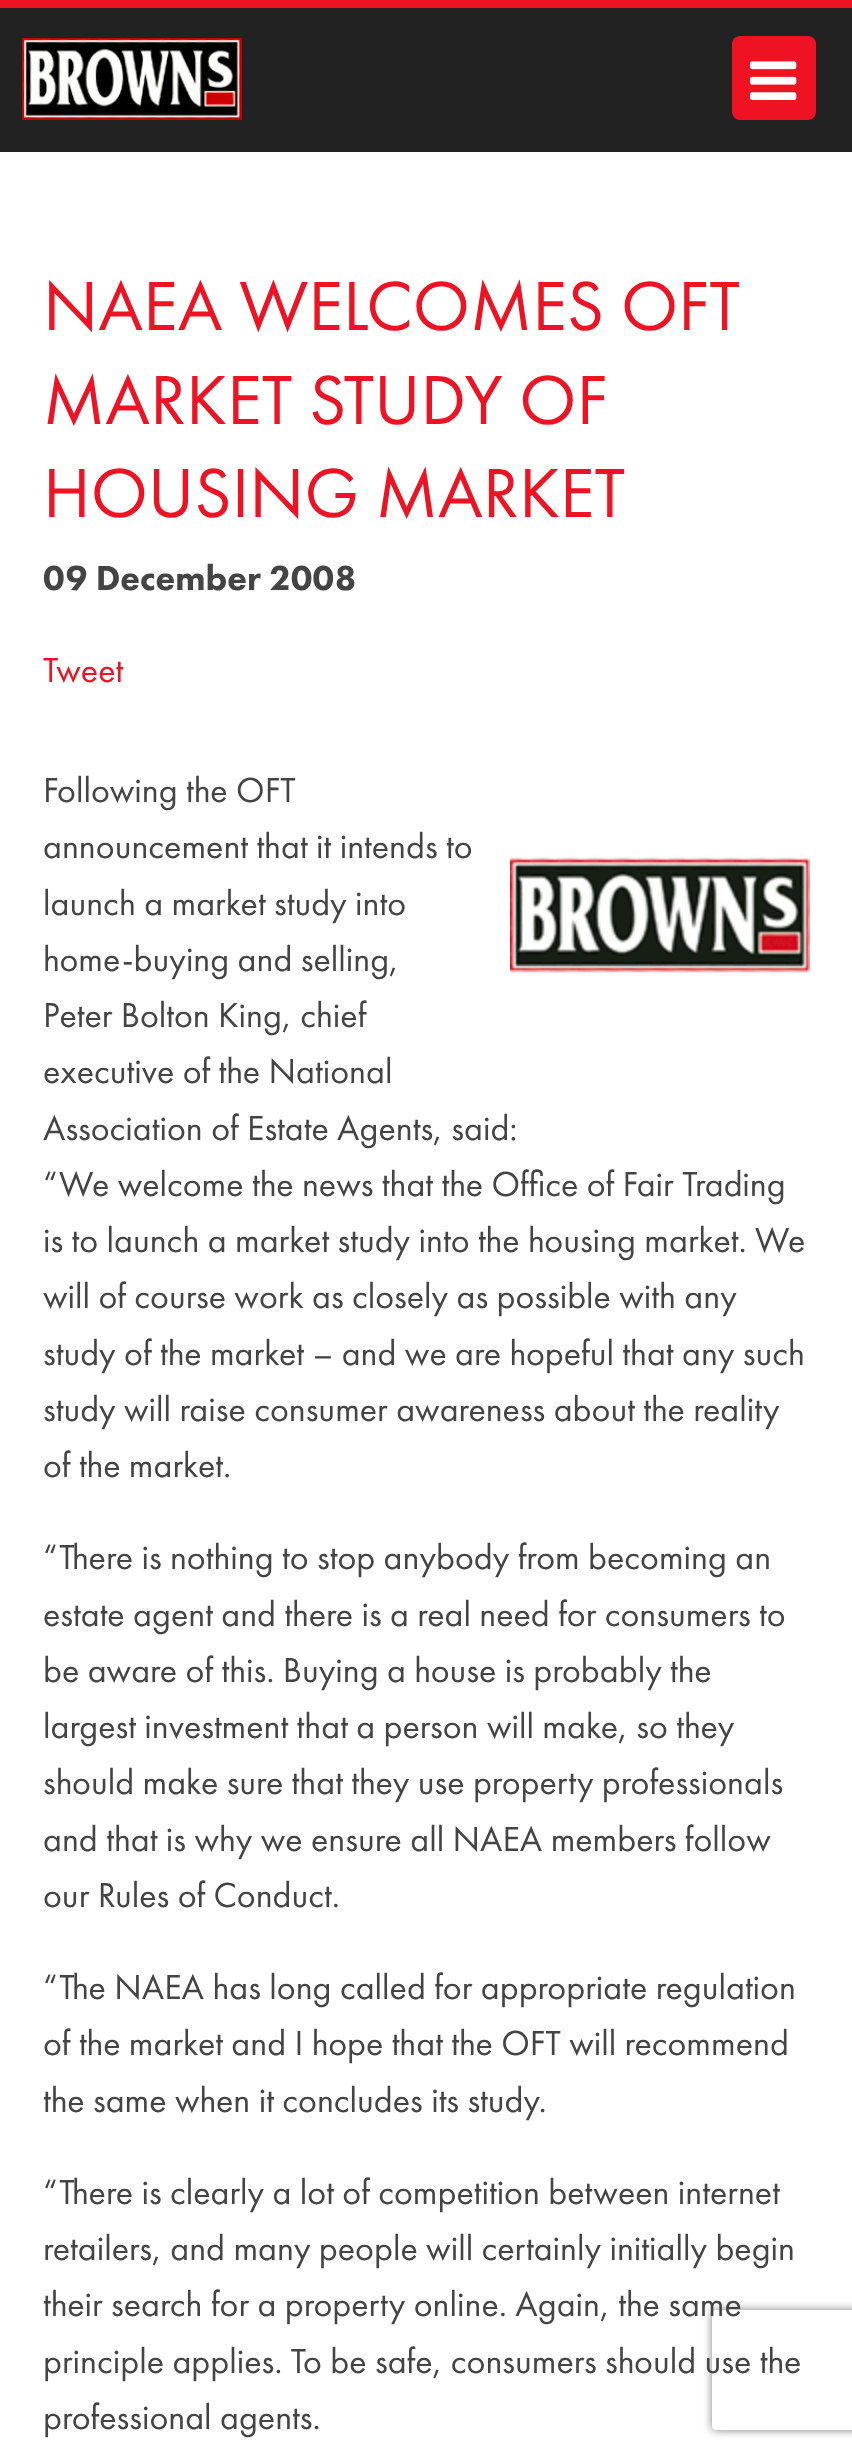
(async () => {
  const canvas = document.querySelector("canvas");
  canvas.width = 852;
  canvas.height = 2457;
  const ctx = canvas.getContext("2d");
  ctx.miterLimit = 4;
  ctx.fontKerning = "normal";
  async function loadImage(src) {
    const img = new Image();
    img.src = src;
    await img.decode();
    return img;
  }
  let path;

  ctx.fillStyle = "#ffffff";
  ctx.fillRect(0, 0, 852, 2457);
  ctx.fillStyle = "#222222";
  ctx.fillRect(0, 8, 852, 144);
  ctx.fillStyle = "#ef1223";
  ctx.fillRect(0, 0, 852, 8);
  ctx.drawImage(await loadImage("img/1.png"), 22, 38, 220, 82);
  ctx.beginPath();
  ctx.roundRect(732, 36, 84, 84, 8);
  ctx.fill();
  ctx.drawImage(await loadImage("img/2.png"), 750, 61, 47, 39);
  ctx.drawImage(await loadImage("img/3.png"), 510, 857, 300, 116);
  ctx.save();
  path = new Path2D("M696 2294H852V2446H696ZM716 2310H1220C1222 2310 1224 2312 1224 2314V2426C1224 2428 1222 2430 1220 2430H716C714 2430 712 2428 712 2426V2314C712 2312 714 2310 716 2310Z");
  ctx.clip(path, "evenodd");
  ctx.fillStyle = "#808080";
  ctx.filter = "blur(5px)";
  ctx.beginPath();
  ctx.roundRect(712, 2310, 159, 120, 4);
  ctx.fill();
  ctx.filter = "none";
  ctx.restore();
  ctx.font = "72px Futura PT";
  for (const [text, x, y] of [
    ["NAEA WELCOMES OFT", 43, 330],
    ["MARKET STUDY OF", 43, 424],
    ["HOUSING MARKET", 43, 517],
  ]) {
    ctx.fillText(text, x, y);
  }
  ctx.font = "900 36px Futura PT";
  ctx.fillStyle = "#444444";
  ctx.fillText("09 December 2008", 43, 590);
  ctx.font = "36px Futura PT";
  ctx.fillStyle = "#ef1223";
  ctx.fillText("Tweet", 43, 682);
  ctx.fillStyle = "#444444";
  for (const [text, x, y] of [
    ["Following the OFT", 43, 802],
    ["announcement that it intends to", 43, 858],
    ["launch a market study into", 43, 915],
    ["home-buying and selling,", 43, 971],
    ["Peter Bolton King, chief", 43, 1027],
    ["executive of the National", 43, 1083],
    ["Association of Estate Agents, said:", 43, 1140],
    ["“We welcome the news that the Office of Fair Trading", 43, 1196],
    ["is to launch a market study into the housing market. We", 43, 1252],
    ["will of course work as closely as possible with any", 43, 1308],
    ["study of the market – and we are hopeful that any such", 43, 1365],
    ["study will raise consumer awareness about the reality", 43, 1421],
    ["of the market.", 43, 1477],
    ["“There is nothing to stop anybody from becoming an", 43, 1569],
    ["estate agent and there is a real need for consumers to", 43, 1626],
    ["be aware of this. Buying a house is probably the", 43, 1682],
    ["largest investment that a person will make, so they", 43, 1738],
    ["should make sure that they use property professionals", 43, 1794],
    ["and that is why we ensure all NAEA members follow", 43, 1851],
    ["our Rules of Conduct.", 43, 1907],
    ["“The NAEA has long called for appropriate regulation", 43, 1999],
    ["of the market and I hope that the OFT will recommend", 43, 2055],
    ["the same when it concludes its study.", 43, 2112],
    ["“There is clearly a lot of competition between internet", 43, 2204],
    ["retailers, and many people will certainly initially begin", 43, 2260],
    ["their search for a property online. Again, the same", 43, 2316],
    ["principle applies. To be safe, consumers should use the", 43, 2373],
    ["professional agents.", 43, 2429],
  ]) {
    ctx.fillText(text, x, y);
  }
})();
